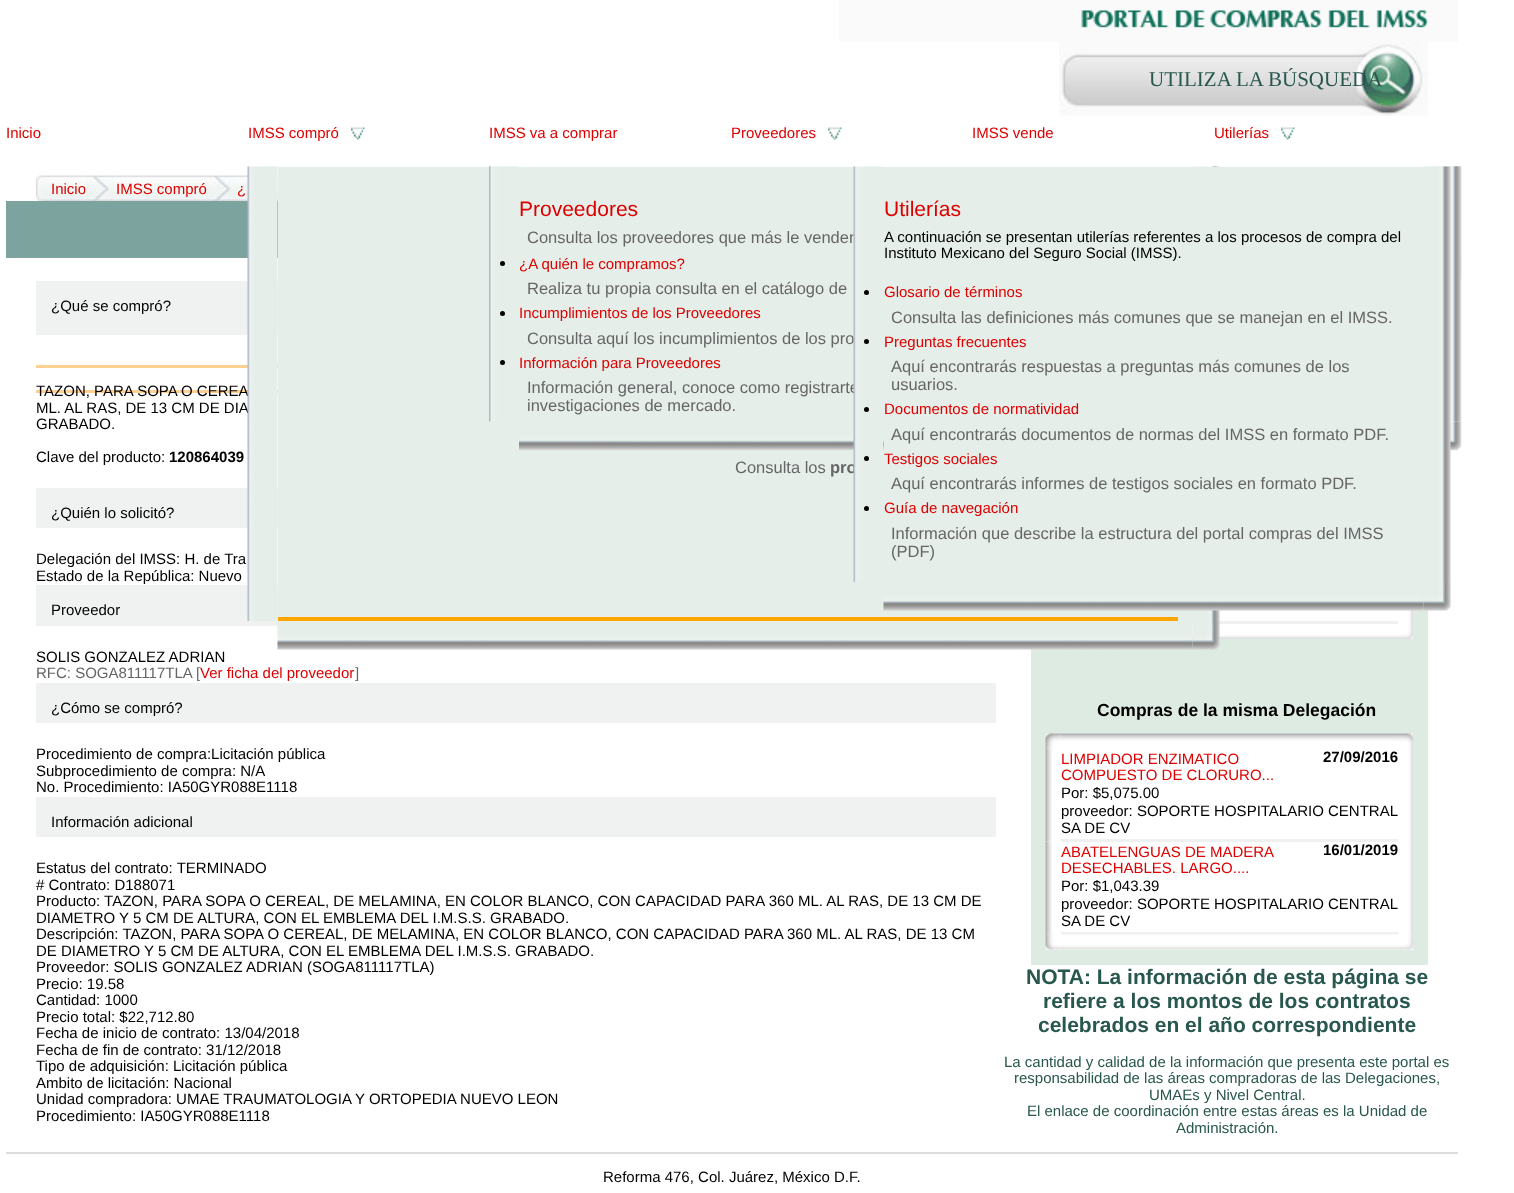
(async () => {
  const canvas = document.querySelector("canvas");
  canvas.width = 1514;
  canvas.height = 1193;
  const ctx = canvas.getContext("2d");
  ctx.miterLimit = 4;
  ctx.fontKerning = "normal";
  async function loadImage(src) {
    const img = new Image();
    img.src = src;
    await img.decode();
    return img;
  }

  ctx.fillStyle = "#ffffff";
  ctx.fillRect(0, 0, 1514, 1193);
  ctx.drawImage(await loadImage("img/1.png"), 839, 0, 619, 42);
  ctx.drawImage(await loadImage("img/2.png"), 1059, 42, 369, 74);
  ctx.drawImage(await loadImage("img/3.png"), 351, 127, 14, 13);
  ctx.drawImage(await loadImage("img/4.png"), 828, 127, 14, 13);
  ctx.drawImage(await loadImage("img/4.png"), 1281, 127, 14, 13);
  ctx.drawImage(await loadImage("img/5.png"), 489, 166, 30, 1);
  ctx.drawImage(await loadImage("img/6.png"), 1434, 166, 28, 88);
  ctx.drawImage(await loadImage("img/7.png"), 1460, 253, 2, 27);
  for (const [x, y, w, h, color] of [
    [1031, 582, 397, 383, "#deebe2"],
    [1192, 610, 217, 25, "#ffffff"],
    [278, 167, 915, 454, "#e5eee9"],
  ]) {
    ctx.fillStyle = color;
    ctx.fillRect(x, y, w, h);
  }
  ctx.drawImage(await loadImage("img/8.png"), 489, 166, 30, 256);
  ctx.fillStyle = "#000000";
  ctx.beginPath();
  ctx.arc(502.5, 263.5, 2.5, 0, Math.PI * 2);
  ctx.fill();
  ctx.beginPath();
  ctx.arc(502.5, 313.5, 2.5, 0, Math.PI * 2);
  ctx.fill();
  ctx.beginPath();
  ctx.arc(502.5, 362.5, 2.5, 0, Math.PI * 2);
  ctx.fill();
  ctx.drawImage(await loadImage("img/9.png"), 1434, 166, 28, 256);
  ctx.drawImage(await loadImage("img/10.png"), 519, 422, 365, 29);
  ctx.drawImage(await loadImage("img/11.png"), 1450, 421, 12, 30);
  ctx.drawImage(await loadImage("img/17.png"), 1192, 166, 28, 455);
  ctx.fillStyle = "#e5eee9";
  ctx.fillRect(1208, 167, 216, 415);
  ctx.drawImage(await loadImage("img/13.png"), 1423, 166, 28, 416);
  ctx.drawImage(await loadImage("img/26.png"), 1409, 610, 4, 14);
  ctx.drawImage(await loadImage("img/14.png"), 883, 582, 541, 29);
  ctx.drawImage(await loadImage("img/15.png"), 1423, 582, 28, 29);
  for (const [x, y, w, h, color] of [
    [278, 617, 900, 4, "#ffa500"],
    [36, 585, 242, 41, "#f0f2f1"],
    [1192, 621, 206, 3, "#eff1f1"],
  ]) {
    ctx.fillStyle = color;
    ctx.fillRect(x, y, w, h);
  }
  ctx.drawImage(await loadImage("img/27.png"), 1192, 635, 206, 4);
  ctx.drawImage(await loadImage("img/18.png"), 277, 621, 916, 29);
  ctx.drawImage(await loadImage("img/19.png"), 1192, 621, 28, 29);
  ctx.drawImage(await loadImage("img/20.png"), 36, 175, 15, 26);
  ctx.drawImage(await loadImage("img/21.png"), 51, 175, 35, 26);
  ctx.drawImage(await loadImage("img/24.png"), 207, 175, 30, 26);
  ctx.drawImage(await loadImage("img/25.png"), 237, 175, 41, 26);
  for (const [x, y, w, h, color] of [
    [6, 201, 272, 57, "#7ca39e"],
    [36, 281, 242, 54, "#f0f2f1"],
    [36, 365, 242, 3, "#fed190"],
    [36, 390, 242, 3, "#fed190"],
    [36, 488, 242, 40, "#f0f2f1"],
    [36, 683, 960, 40, "#f0f2f1"],
    [36, 797, 960, 40, "#f0f2f1"],
  ]) {
    ctx.fillStyle = color;
    ctx.fillRect(x, y, w, h);
  }
  ctx.drawImage(await loadImage("img/28.png"), 1398, 624, 15, 15);
  ctx.fillStyle = "#ffffff";
  ctx.fillRect(1046, 734, 367, 216);
  ctx.drawImage(await loadImage("img/29.png"), 1045, 733, 16, 16);
  ctx.drawImage(await loadImage("img/30.png"), 1060, 733, 338, 8);
  ctx.drawImage(await loadImage("img/31.png"), 1398, 733, 15, 16);
  ctx.drawImage(await loadImage("img/32.png"), 1045, 748, 7, 94);
  ctx.fillStyle = "#eff1f1";
  ctx.fillRect(1061, 839, 337, 3);
  ctx.drawImage(await loadImage("img/33.png"), 1409, 748, 4, 94);
  ctx.drawImage(await loadImage("img/32.png"), 1045, 841, 7, 94);
  ctx.fillRect(1061, 932, 337, 3);
  ctx.drawImage(await loadImage("img/33.png"), 1409, 841, 4, 94);
  ctx.drawImage(await loadImage("img/34.png"), 1045, 934, 16, 16);
  ctx.drawImage(await loadImage("img/35.png"), 1060, 934, 338, 16);
  ctx.drawImage(await loadImage("img/36.png"), 1398, 934, 15, 16);
  ctx.fillStyle = "#dddddf";
  ctx.fillRect(6, 1152, 1452, 2);
  ctx.font = "21px Liberation Serif";
  ctx.fillStyle = "#28574d";
  ctx.fillText("UTILIZA LA BÚSQUEDA", 1149, 86);
  ctx.font = "15px Liberation Sans";
  ctx.fillStyle = "#dd0000";
  for (const [text, x, y] of [
    ["Inicio", 6, 138],
    ["IMSS compró", 248, 138],
    ["IMSS va a comprar", 489, 138],
    ["Proveedores", 731, 138],
    ["IMSS vende", 972, 138],
    ["Utilerías", 1214, 138],
  ]) {
    ctx.fillText(text, x, y);
  }
  ctx.font = "21px Liberation Sans";
  ctx.fillText("Proveedores", 519, 216);
  ctx.font = "16.5px Liberation Sans";
  ctx.fillStyle = "#666666";
  ctx.fillText("Consulta los proveedores que más le venden", 527, 243);
  ctx.font = "15px Liberation Sans";
  ctx.fillStyle = "#dd0000";
  ctx.fillText("¿A quién le compramos?", 519, 269);
  ctx.font = "16.5px Liberation Sans";
  ctx.fillStyle = "#666666";
  ctx.fillText("Realiza tu propia consulta en el catálogo de", 527, 294);
  ctx.font = "15px Liberation Sans";
  ctx.fillStyle = "#dd0000";
  ctx.fillText("Incumplimientos de los Proveedores", 519, 318);
  ctx.font = "16.5px Liberation Sans";
  ctx.fillStyle = "#666666";
  ctx.fillText("Consulta aquí los incumplimientos de los pro", 527, 344);
  ctx.font = "15px Liberation Sans";
  ctx.fillStyle = "#dd0000";
  ctx.fillText("Información para Proveedores", 519, 368);
  ctx.font = "16.5px Liberation Sans";
  ctx.fillStyle = "#666666";
  ctx.fillText("Información general, conoce como registrarte", 527, 393);
  ctx.fillText("investigaciones de mercado.", 527, 411);
  ctx.font = "21px Liberation Sans";
  ctx.fillStyle = "#dd0000";
  ctx.fillText("Utilerías", 884, 216);
  ctx.font = "15px Liberation Sans";
  ctx.fillStyle = "#000000";
  ctx.fillText("Instituto Mexicano del Seguro Social (IMSS).", 884, 258);
  ctx.fillStyle = "#dd0000";
  ctx.fillText("Glosario de términos", 884, 297);
  ctx.font = "16.5px Liberation Sans";
  ctx.fillStyle = "#666666";
  ctx.fillText("Consulta las definiciones más comunes que se manejan en el IMSS.", 891, 323);
  ctx.font = "15px Liberation Sans";
  ctx.fillStyle = "#dd0000";
  ctx.fillText("Preguntas frecuentes", 884, 347);
  ctx.font = "16.5px Liberation Sans";
  ctx.fillStyle = "#666666";
  ctx.fillText("Aquí encontrarás respuestas a preguntas más comunes de los", 891, 372);
  ctx.fillText("usuarios.", 891, 390);
  ctx.font = "15px Liberation Sans";
  ctx.fillStyle = "#dd0000";
  ctx.fillText("Documentos de normatividad", 884, 414);
  ctx.font = "16.5px Liberation Sans";
  ctx.fillStyle = "#666666";
  ctx.fillText("Aquí encontrarás documentos de normas del IMSS en formato PDF.", 891, 440);
  ctx.fillText("Aquí encontrarás informes de testigos sociales en formato PDF.", 891, 489);
  ctx.font = "15px Liberation Sans";
  ctx.fillStyle = "#dd0000";
  ctx.fillText("Guía de navegación", 884, 513);
  ctx.font = "16.5px Liberation Sans";
  ctx.fillStyle = "#666666";
  for (const [text, x, y] of [
    ["Información que describe la estructura del portal compras del IMSS", 891, 539],
    ["(PDF)", 891, 557],
    ["Consulta los", 735, 473],
  ]) {
    ctx.fillText(text, x, y);
  }
  ctx.font = "bold 16.5px Liberation Sans";
  ctx.fillText("pro", 830, 473);
  ctx.drawImage(await loadImage("img/12.png"), 853, 166, 31, 416);
  ctx.fillStyle = "#000000";
  ctx.beginPath();
  ctx.arc(866.5, 508.5, 2.5, 0, Math.PI * 2);
  ctx.fill();
  ctx.font = "15px Liberation Sans";
  ctx.fillStyle = "#dd0000";
  ctx.fillText("Testigos sociales", 884, 464);
  ctx.fillStyle = "#000000";
  ctx.beginPath();
  ctx.arc(866.5, 458.5, 2.5, 0, Math.PI * 2);
  ctx.fill();
  ctx.beginPath();
  ctx.arc(866.5, 409.5, 2.5, 0, Math.PI * 2);
  ctx.fill();
  ctx.beginPath();
  ctx.arc(866.5, 341.5, 2.5, 0, Math.PI * 2);
  ctx.fill();
  ctx.beginPath();
  ctx.arc(866.5, 292.5, 2.5, 0, Math.PI * 2);
  ctx.fill();
  ctx.fillText("A continuación se presentan utilerías referentes a los procesos de compra del", 884, 242);
  ctx.fillStyle = "#dd0000";
  ctx.fillText("Inicio", 51, 194);
  ctx.drawImage(await loadImage("img/22.png"), 85, 175, 31, 26);
  ctx.drawImage(await loadImage("img/23.png"), 115, 175, 92, 26);
  ctx.fillText("IMSS compró", 116, 194);
  ctx.fillText("¿", 237, 194);
  ctx.fillStyle = "#000000";
  for (const [text, x, y] of [
    ["¿Qué se compró?", 51, 311],
    ["TAZON, PARA SOPA O CEREA", 36, 396],
    ["ML. AL RAS, DE 13 CM DE DIA", 36, 413],
  ]) {
    ctx.fillText(text, x, y);
  }
  ctx.drawImage(await loadImage("img/16.png"), 247, 166, 31, 455);
  ctx.fillText("GRABADO.", 36, 429);
  ctx.fillText("Clave del producto:", 36, 462);
  ctx.font = "bold 15px Liberation Sans";
  ctx.fillText("120864039", 169, 462);
  ctx.font = "15px Liberation Sans";
  for (const [text, x, y] of [
    ["¿Quién lo solicitó?", 51, 518],
    ["Delegación del IMSS: H. de Tra", 36, 564],
    ["Estado de la República: Nuevo", 36, 581],
    ["Proveedor", 51, 615],
    ["SOLIS GONZALEZ ADRIAN", 36, 662],
  ]) {
    ctx.fillText(text, x, y);
  }
  ctx.fillStyle = "#666666";
  ctx.fillText("RFC: SOGA811117TLA [", 36, 678);
  ctx.fillStyle = "#dd0000";
  ctx.fillText("Ver ficha del proveedor", 200, 678);
  ctx.fillStyle = "#666666";
  ctx.fillText("]", 355, 678);
  ctx.fillStyle = "#000000";
  for (const [text, x, y] of [
    ["¿Cómo se compró?", 51, 713],
    ["Procedimiento de compra:Licitación pública", 36, 759],
    ["Subprocedimiento de compra: N/A", 36, 776],
    ["No. Procedimiento: IA50GYR088E1118", 36, 792],
    ["Información adicional", 51, 827],
    ["Estatus del contrato: TERMINADO", 36, 873],
    ["# Contrato: D188071", 36, 890],
    ["Producto: TAZON, PARA SOPA O CEREAL, DE MELAMINA, EN COLOR BLANCO, CON CAPACIDAD PARA 360 ML. AL RAS, DE 13 CM DE", 36, 906],
    ["DIAMETRO Y 5 CM DE ALTURA, CON EL EMBLEMA DEL I.M.S.S. GRABADO.", 36, 923],
    ["Descripción: TAZON, PARA SOPA O CEREAL, DE MELAMINA, EN COLOR BLANCO, CON CAPACIDAD PARA 360 ML. AL RAS, DE 13 CM", 36, 939],
    ["DE DIAMETRO Y 5 CM DE ALTURA, CON EL EMBLEMA DEL I.M.S.S. GRABADO.", 36, 956],
    ["Proveedor: SOLIS GONZALEZ ADRIAN (SOGA811117TLA)", 36, 972],
    ["Precio: 19.58", 36, 989],
    ["Cantidad: 1000", 36, 1005],
    ["Precio total: $22,712.80", 36, 1022],
    ["Fecha de inicio de contrato: 13/04/2018", 36, 1038],
    ["Fecha de fin de contrato: 31/12/2018", 36, 1055],
    ["Tipo de adquisición: Licitación pública", 36, 1071],
    ["Ambito de licitación: Nacional", 36, 1088],
    ["Unidad compradora: UMAE TRAUMATOLOGIA Y ORTOPEDIA NUEVO LEON", 36, 1104],
    ["Procedimiento: IA50GYR088E1118", 36, 1121],
  ]) {
    ctx.fillText(text, x, y);
  }
  ctx.font = "bold 17.5px Liberation Sans";
  ctx.fillText("Compras de la misma Delegación", 1097, 716);
  ctx.font = "15px Liberation Sans";
  ctx.fillStyle = "#dd0000";
  ctx.fillText("LIMPIADOR ENZIMATICO", 1061, 764);
  ctx.font = "bold 15px Liberation Sans";
  ctx.fillStyle = "#000000";
  ctx.fillText("27/09/2016", 1323, 762);
  ctx.font = "15px Liberation Sans";
  ctx.fillStyle = "#dd0000";
  ctx.fillText("COMPUESTO DE CLORURO...", 1061, 780);
  ctx.fillStyle = "#000000";
  for (const [text, x, y] of [
    ["Por: $5,075.00", 1061, 798],
    ["proveedor: SOPORTE HOSPITALARIO CENTRAL", 1061, 816],
    ["SA DE CV", 1061, 833],
  ]) {
    ctx.fillText(text, x, y);
  }
  ctx.fillStyle = "#dd0000";
  ctx.fillText("ABATELENGUAS DE MADERA", 1061, 857);
  ctx.font = "bold 15px Liberation Sans";
  ctx.fillStyle = "#000000";
  ctx.fillText("16/01/2019", 1323, 855);
  ctx.font = "15px Liberation Sans";
  ctx.fillStyle = "#dd0000";
  ctx.fillText("DESECHABLES. LARGO....", 1061, 873);
  ctx.fillStyle = "#000000";
  for (const [text, x, y] of [
    ["Por: $1,043.39", 1061, 891],
    ["proveedor: SOPORTE HOSPITALARIO CENTRAL", 1061, 909],
    ["SA DE CV", 1061, 926],
  ]) {
    ctx.fillText(text, x, y);
  }
  ctx.font = "bold 21px Liberation Sans";
  ctx.fillStyle = "#28574d";
  for (const [text, x, y] of [
    ["NOTA: La información de esta página se", 1026, 984],
    ["refiere a los montos de los contratos", 1043, 1008],
    ["celebrados en el año correspondiente", 1038, 1032],
  ]) {
    ctx.fillText(text, x, y);
  }
  ctx.font = "15px Liberation Sans";
  for (const [text, x, y] of [
    ["La cantidad y calidad de la información que presenta este portal es", 1004, 1067],
    ["responsabilidad de las áreas compradoras de las Delegaciones,", 1014, 1083],
    ["UMAEs y Nivel Central.", 1149, 1100],
    ["El enlace de coordinación entre estas áreas es la Unidad de", 1027, 1116],
    ["Administración.", 1176, 1133],
  ]) {
    ctx.fillText(text, x, y);
  }
  ctx.fillStyle = "#000000";
  ctx.fillText("Reforma 476, Col. Juárez, México D.F.", 603, 1182);
})();
